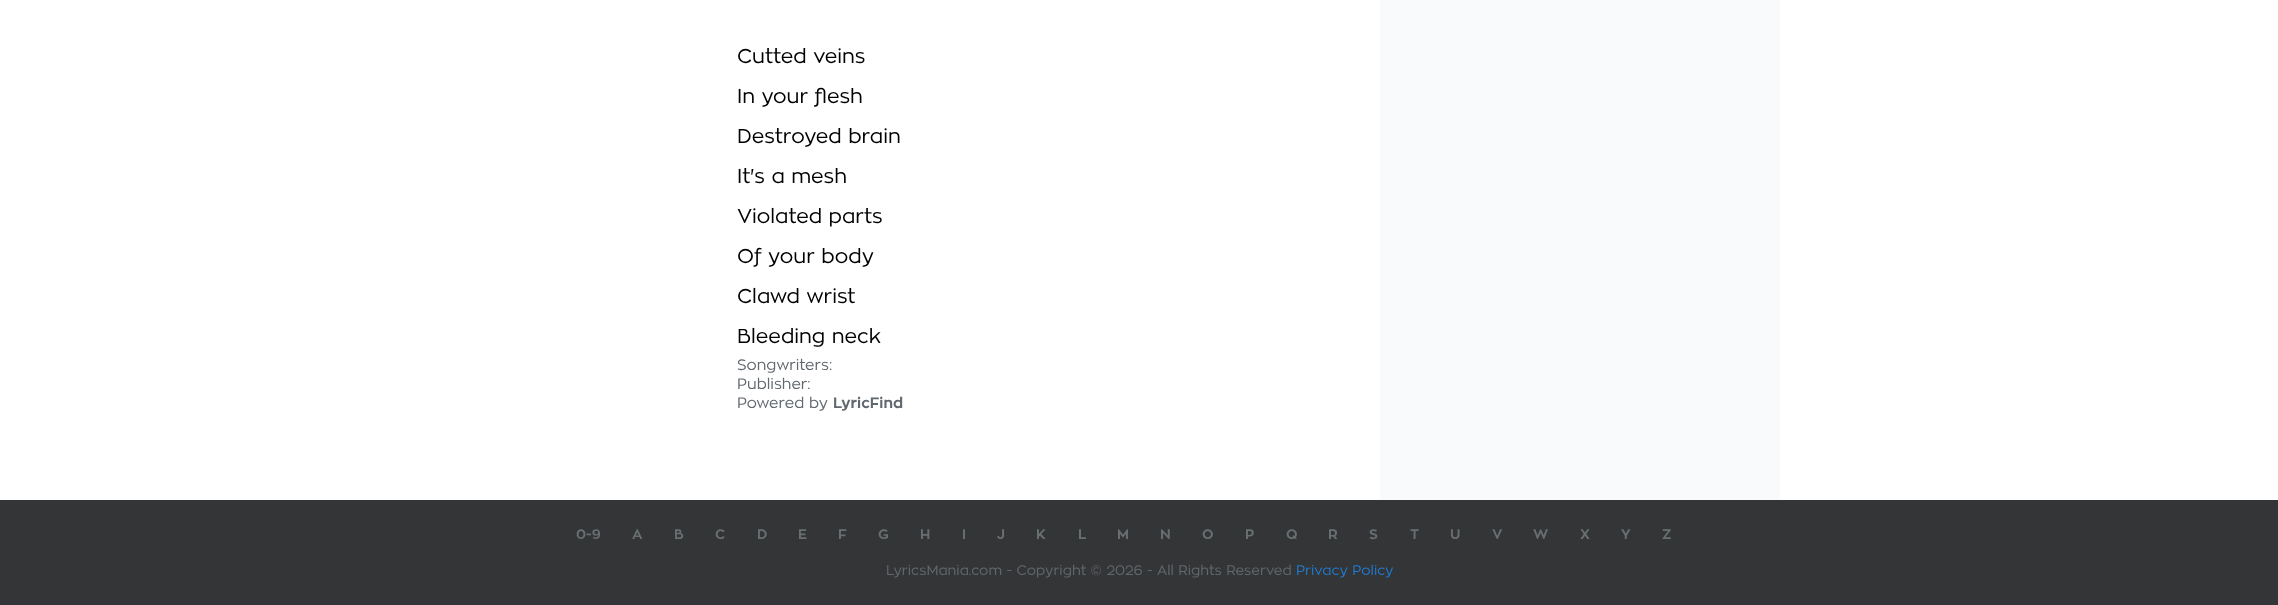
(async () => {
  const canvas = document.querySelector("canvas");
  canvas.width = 2278;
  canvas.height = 605;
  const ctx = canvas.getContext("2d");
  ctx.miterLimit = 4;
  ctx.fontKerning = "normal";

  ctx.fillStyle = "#ffffff";
  ctx.fillRect(0, 0, 2278, 605);
  ctx.fillStyle = "#f8fafb";
  ctx.fillRect(1380, 0, 400, 500);
  ctx.fillStyle = "#343536";
  ctx.fillRect(0, 500, 2278, 105);
  ctx.font = "20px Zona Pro";
  ctx.fillStyle = "#000000";
  for (const [text, x, y] of [
    ["Cutted veins", 737, 63],
    ["In your flesh", 737, 103],
    ["Destroyed brain", 737, 143],
    ["It's a mesh", 737, 183],
    ["Violated parts", 737, 223],
    ["Of your body", 737, 263],
    ["Clawd wrist", 737, 303],
    ["Bleeding neck", 737, 343],
  ]) {
    ctx.fillText(text, x, y);
  }
  ctx.font = "15px Zona Pro";
  ctx.fillStyle = "#62686f";
  for (const [text, x, y] of [
    ["Songwriters:", 737, 370],
    ["Publisher:", 737, 389],
    ["Powered by", 737, 408],
  ]) {
    ctx.fillText(text, x, y);
  }
  ctx.font = "bold 15px Zona Pro";
  ctx.fillText("LyricFind", 833, 408);
  ctx.font = "bold 13.75px Zona Pro";
  ctx.fillStyle = "#686f72";
  for (const [text, x, y] of [
    ["0-9", 576, 539],
    ["A", 632, 539],
    ["B", 674, 539],
    ["C", 715, 539],
    ["D", 757, 539],
    ["E", 798, 539],
    ["F", 838, 539],
    ["G", 878, 539],
    ["H", 920, 539],
    ["I", 962, 539],
    ["J", 997, 539],
    ["K", 1036, 539],
    ["L", 1078, 539],
    ["M", 1117, 539],
    ["N", 1160, 539],
    ["O", 1202, 539],
    ["P", 1245, 539],
    ["Q", 1286, 539],
    ["R", 1328, 539],
    ["S", 1369, 539],
    ["T", 1410, 539],
    ["U", 1450, 539],
    ["V", 1492, 539],
    ["W", 1533, 539],
    ["X", 1580, 539],
    ["Y", 1621, 539],
    ["Z", 1662, 539],
  ]) {
    ctx.fillText(text, x, y);
  }
  ctx.font = "13.75px Zona Pro";
  ctx.fillStyle = "#62686f";
  ctx.fillText("LyricsMania.com - Copyright © 2026 - All Rights Reserved", 886, 575);
  ctx.fillStyle = "#217acf";
  ctx.fillText("Privacy Policy", 1296, 575);
})();
